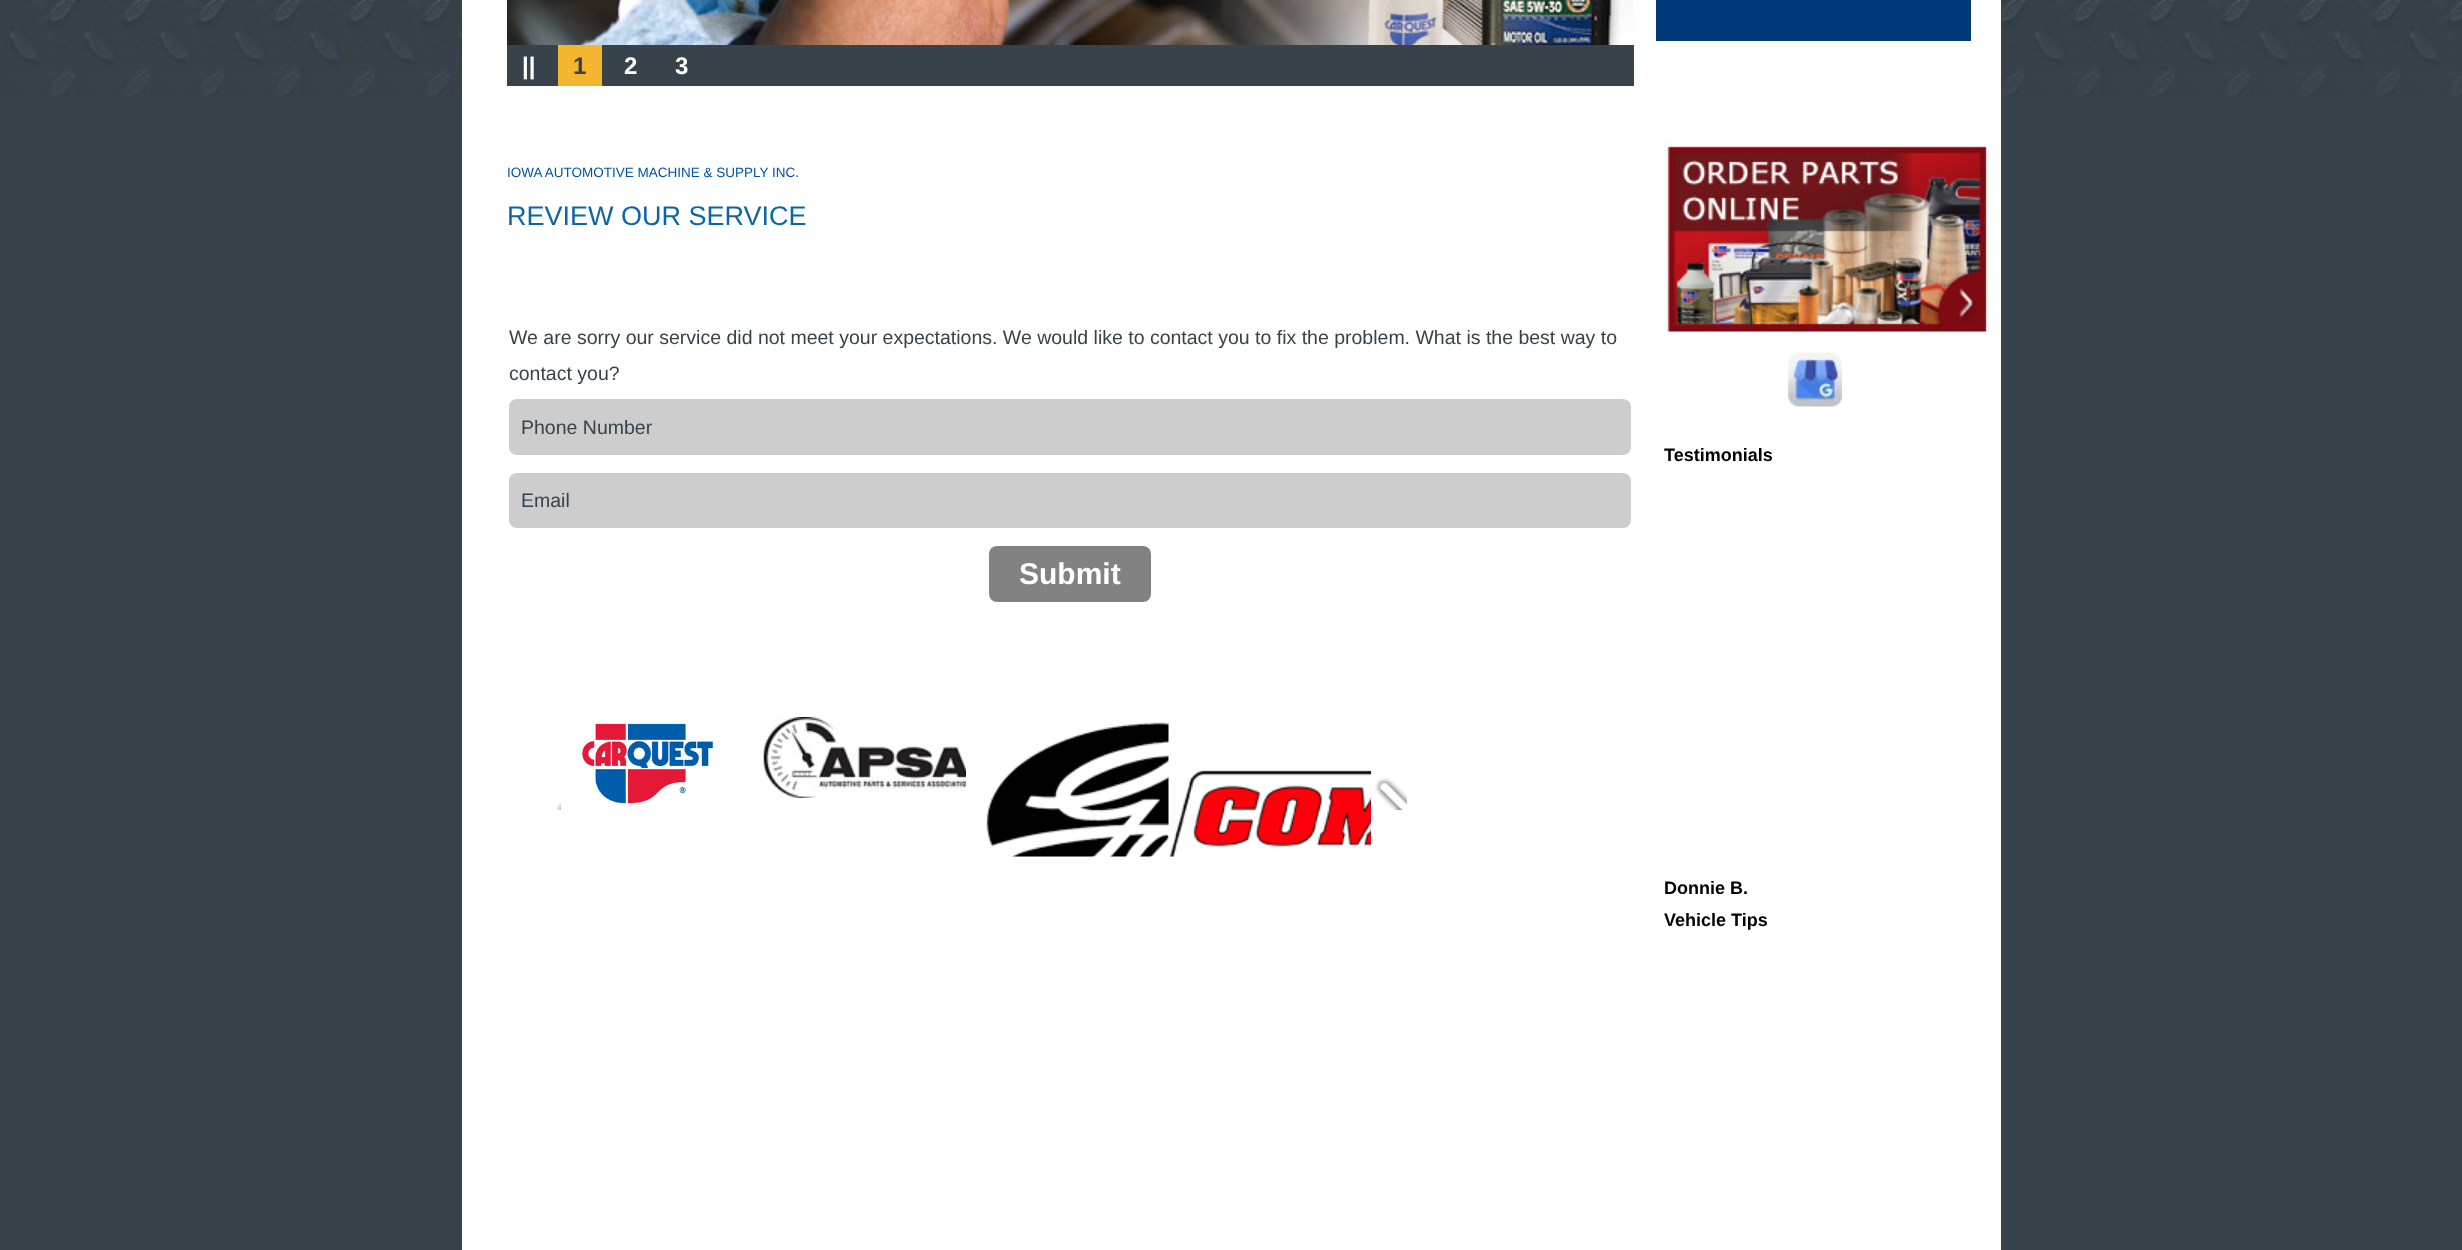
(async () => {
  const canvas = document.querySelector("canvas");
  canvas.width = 2462;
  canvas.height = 1250;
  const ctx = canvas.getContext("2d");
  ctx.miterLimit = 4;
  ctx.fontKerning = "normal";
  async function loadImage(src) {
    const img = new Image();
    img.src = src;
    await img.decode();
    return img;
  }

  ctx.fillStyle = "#37424a";
  ctx.fillRect(0, 0, 2462, 1250);
  ctx.drawImage(await loadImage("img/1.png"), 0, 0, 2462, 96);
  ctx.fillStyle = "#ffffff";
  ctx.fillRect(462, 0, 1539, 1250);
  ctx.fillStyle = "#023979";
  ctx.fillRect(1656, 0, 315, 41);
  ctx.drawImage(await loadImage("img/2.png"), 507, 0, 1126, 45);
  ctx.fillStyle = "#37424a";
  ctx.fillRect(507, 45, 1127, 41);
  ctx.fillStyle = "#f5b52f";
  ctx.fillRect(558, 45, 44, 41);
  ctx.fillStyle = "#cdcdcd";
  ctx.beginPath();
  ctx.roundRect(509, 399, 1122, 56, 8);
  ctx.fill();
  ctx.beginPath();
  ctx.roundRect(509, 473, 1122, 55, 8);
  ctx.fill();
  ctx.fillStyle = "#828282";
  ctx.beginPath();
  ctx.roundRect(989, 546, 162, 56, 8);
  ctx.fill();
  ctx.drawImage(await loadImage("img/3.png"), 582, 723, 131, 81);
  ctx.drawImage(await loadImage("img/4.png"), 763, 717, 203, 81);
  ctx.drawImage(await loadImage("img/5.png"), 986, 722, 183, 135);
  ctx.drawImage(await loadImage("img/6.png"), 1169, 770, 202, 87);
  ctx.drawImage(await loadImage("img/7.png"), 556, 802, 5, 8);
  ctx.drawImage(await loadImage("img/8.png"), 1375, 778, 32, 32);
  ctx.drawImage(await loadImage("img/9.png"), 1663, 142, 325, 193);
  ctx.drawImage(await loadImage("img/10.png"), 1788, 352, 54, 55);
  ctx.font = "bold 24px Liberation Sans";
  ctx.fillStyle = "#ffffff";
  ctx.fillText("||", 522, 74);
  ctx.fillStyle = "#37424a";
  ctx.fillText("1", 573, 74);
  ctx.fillStyle = "#ffffff";
  ctx.fillText("2", 624, 74);
  ctx.fillText("3", 675, 74);
  ctx.font = "13.5px Liberation Sans";
  ctx.fillStyle = "#0252aa";
  ctx.fillText("IOWA AUTOMOTIVE MACHINE & SUPPLY INC.", 507, 177);
  ctx.font = "27px Liberation Sans";
  ctx.fillStyle = "#0d66a4";
  ctx.fillText("REVIEW OUR SERVICE", 507, 225);
  ctx.font = "19.5px Liberation Sans";
  ctx.fillStyle = "#37424a";
  for (const [text, x, y] of [
    ["We are sorry our service did not meet your expectations. We would like to contact you to fix the problem. What is the best way to", 509, 344],
    ["contact you?", 509, 380],
    ["Phone Number", 521, 434],
    ["Email", 521, 507],
  ]) {
    ctx.fillText(text, x, y);
  }
  ctx.font = "bold 30px Liberation Sans";
  ctx.fillStyle = "#ffffff";
  ctx.fillText("Submit", 1019, 584);
  ctx.font = "bold 18px Liberation Sans";
  ctx.fillStyle = "#000000";
  ctx.fillText("Testimonials", 1664, 461);
  ctx.save();
  ctx.beginPath();
  ctx.rect(1664, 468, 315, 426);
  ctx.clip();
  ctx.fillText("Donnie B.", 1664, 894);
  ctx.restore();
  ctx.fillText("Vehicle Tips", 1664, 926);
})();
